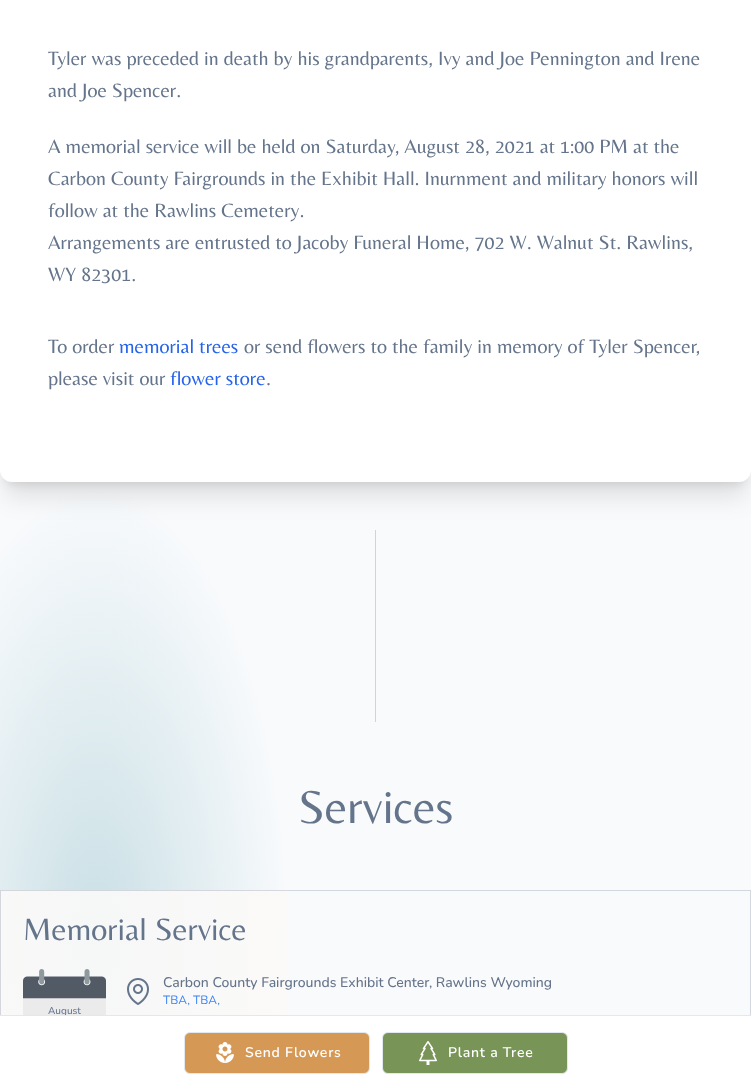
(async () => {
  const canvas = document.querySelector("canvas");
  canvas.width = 751;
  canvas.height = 1090;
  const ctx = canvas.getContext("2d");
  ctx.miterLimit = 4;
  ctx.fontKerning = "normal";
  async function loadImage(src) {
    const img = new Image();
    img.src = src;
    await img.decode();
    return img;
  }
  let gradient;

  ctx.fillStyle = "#f9fafb";
  ctx.fillRect(0, 0, 751, 1090);
  gradient = ctx.createRadialGradient(96, 400.21, 0, 96, 400.21, 192);
  gradient.addColorStop(0, "#c9dfe5");
  gradient.addColorStop(1, "#f8fafc");
  ctx.fillStyle = gradient;
  ctx.beginPath();
  ctx.roundRect(-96, 488, 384, 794, 192);
  ctx.save();
  ctx.clip();
  ctx.scale(1, 450 / 192);
  ctx.fillRect(0, 0, 751, 466);
  ctx.restore();
  ctx.fillStyle = "rgba(0, 0, 0, 0.1)";
  ctx.filter = "blur(5px)";
  ctx.beginPath();
  ctx.roundRect(6, -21, 739, 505, 6);
  ctx.fill();
  ctx.filter = "none";
  ctx.fillStyle = "#cbd5e1";
  ctx.fillRect(375, 530, 1, 192);
  ctx.fillStyle = "rgba(0, 0, 0, 0.1)";
  ctx.filter = "blur(12.5px)";
  ctx.beginPath();
  ctx.roundRect(5, -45, 741, 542, 7);
  ctx.fill();
  ctx.filter = "none";
  ctx.fillStyle = "#ffffff";
  ctx.beginPath();
  ctx.roundRect(0, -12, 751, 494, 12);
  ctx.fill();
  gradient = ctx.createRadialGradient(96, 400.21, 0, 96, 400.21, 192);
  gradient.addColorStop(0, "#f6f7f7");
  gradient.addColorStop(1, "#fbfaf9");
  ctx.fillStyle = gradient;
  ctx.beginPath();
  ctx.rect(0, 890, 288, 125);
  ctx.save();
  ctx.clip();
  ctx.scale(1, 450 / 192);
  ctx.fillRect(0, 0, 751, 466);
  ctx.restore();
  ctx.strokeStyle = "rgba(100, 116, 139, 0.25)";
  ctx.strokeRect(0.5, 890.5, 750, 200);
  ctx.drawImage(await loadImage("img/1.png"), 127, 978, 22, 27);
  ctx.drawImage(await loadImage("img/2.png"), 23, 969, 83, 46);
  ctx.fillStyle = "#ffffff";
  ctx.fillRect(0, 1016, 751, 74);
  ctx.fillStyle = "#d59955";
  ctx.beginPath();
  ctx.roundRect(184.5, 1032.5, 185, 41, 5.5);
  ctx.fill();
  ctx.strokeStyle = "#e2e8f0";
  ctx.stroke();
  ctx.drawImage(await loadImage("img/3.png"), 216, 1042, 18, 21);
  ctx.fillStyle = "#799457";
  ctx.beginPath();
  ctx.roundRect(382.5, 1032.5, 185, 41, 5.5);
  ctx.fill();
  ctx.stroke();
  ctx.drawImage(await loadImage("img/4.png"), 419, 1041, 18, 24);
  ctx.font = "20px Belleza";
  ctx.fillStyle = "#64748b";
  for (const [text, x, y] of [
    ["Tyler was preceded in death by his grandparents, Ivy and Joe Pennington and Irene", 48, 65],
    ["and Joe Spencer.", 48, 97],
    ["A memorial service will be held on Saturday, August 28, 2021 at 1:00 PM at the", 48, 153],
    ["Carbon County Fairgrounds in the Exhibit Hall. Inurnment and military honors will", 48, 185],
    ["follow at the Rawlins Cemetery.", 48, 217],
    ["Arrangements are entrusted to Jacoby Funeral Home, 702 W. Walnut St. Rawlins,", 48, 249],
    ["WY 82301.", 48, 281],
    ["To order", 48, 353],
  ]) {
    ctx.fillText(text, x, y);
  }
  ctx.fillStyle = "#2563eb";
  ctx.fillText("memorial trees", 119, 353);
  ctx.fillStyle = "#64748b";
  ctx.fillText("or send flowers to the family in memory of Tyler Spencer,", 244, 353);
  ctx.fillText("please visit our", 48, 385);
  ctx.fillStyle = "#2563eb";
  ctx.fillText("flower store", 170, 385);
  ctx.fillStyle = "#64748b";
  ctx.fillText(".", 266, 385);
  ctx.font = "48px Belleza";
  ctx.fillText("Services", 298, 823);
  ctx.font = "32px Belleza";
  ctx.fillText("Memorial Service", 23, 940);
  ctx.font = "500 14px Nunito";
  ctx.fillText("Carbon County Fairgrounds Exhibit Center, Rawlins Wyoming", 163, 987);
  ctx.font = "12px Nunito";
  ctx.fillStyle = "#3b82f6";
  ctx.fillText("TBA, TBA,", 163, 1004);
  ctx.font = "500 10px Nunito";
  ctx.fillStyle = "#64748b";
  ctx.fillText("August", 48, 1014);
  ctx.fillStyle = "#e5e7eb";
  ctx.fillRect(0, 1015, 751, 1);
  ctx.letterSpacing = "0.75px";
  ctx.font = "600 14px Nunito";
  ctx.fillStyle = "#ffffff";
  ctx.fillText("Send Flowers", 245, 1057);
  ctx.fillText("Plant a Tree", 448, 1057);
})();
